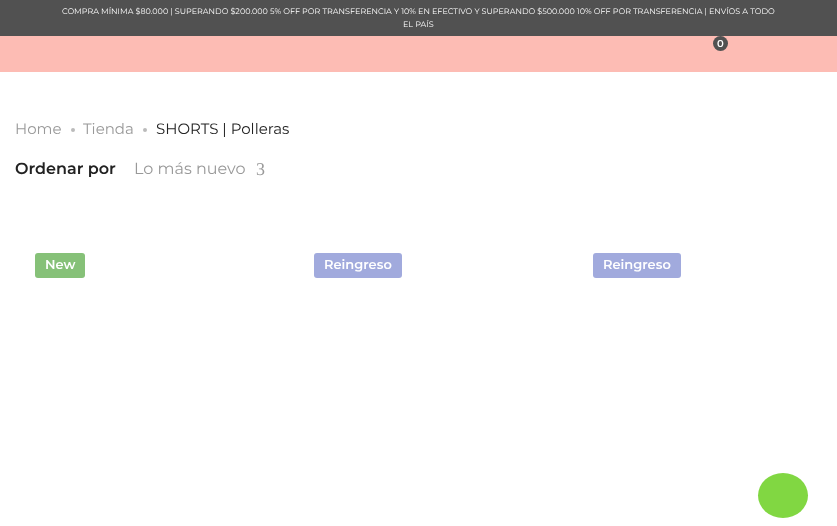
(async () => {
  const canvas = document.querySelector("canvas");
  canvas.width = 837;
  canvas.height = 526;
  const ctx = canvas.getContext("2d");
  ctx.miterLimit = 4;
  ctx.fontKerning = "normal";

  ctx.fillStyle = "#ffffff";
  ctx.fillRect(0, 0, 837, 526);
  ctx.fillStyle = "#515151";
  ctx.fillRect(0, 0, 837, 36);
  ctx.fillStyle = "#fdbcb4";
  ctx.fillRect(0, 36, 837, 36);
  ctx.fillStyle = "#515151";
  ctx.beginPath();
  ctx.arc(720.5, 43.5, 7.5, 0, Math.PI * 2);
  ctx.fill();
  ctx.fillStyle = "#bbbbbb";
  ctx.beginPath();
  ctx.arc(73, 130, 2, 0, Math.PI * 2);
  ctx.fill();
  ctx.beginPath();
  ctx.arc(145, 130, 2, 0, Math.PI * 2);
  ctx.fill();
  ctx.fillStyle = "#86c178";
  ctx.beginPath();
  ctx.roundRect(35, 253, 50, 25, 3);
  ctx.fill();
  ctx.fillStyle = "#a1aadd";
  ctx.beginPath();
  ctx.roundRect(314, 253, 88, 25, 3);
  ctx.fill();
  ctx.beginPath();
  ctx.roundRect(593, 253, 88, 25, 3);
  ctx.fill();
  ctx.fillStyle = "#81d742";
  ctx.beginPath();
  ctx.ellipse(783, 495.5, 25, 22.5, 0, 0, Math.PI * 2);
  ctx.fill();
  ctx.font = "8px Montserrat";
  ctx.fillStyle = "#ffffff";
  ctx.fillText("COMPRA MÍNIMA $80.000 | SUPERANDO $200.000 5% OFF POR TRANSFERENCIA Y 10% EN EFECTIVO Y SUPERANDO $500.000 10% OFF POR TRANSFERENCIA | ENVÍOS A TODO", 62, 14);
  ctx.fillText("EL PAÍS", 403, 27);
  ctx.font = "600 10px Montserrat";
  ctx.fillText("0", 717, 47);
  ctx.font = "15px Montserrat";
  ctx.fillStyle = "#999999";
  ctx.fillText("Home", 15, 134);
  ctx.fillText("Tienda", 83, 134);
  ctx.fillStyle = "#222222";
  ctx.fillText("SHORTS | Polleras", 156, 134);
  ctx.font = "600 16px Montserrat";
  ctx.fillText("Ordenar por", 15, 174);
  ctx.font = "16px Montserrat";
  ctx.fillStyle = "#999999";
  ctx.fillText("Lo más nuevo", 134, 174);
  ctx.font = "18px Liberation Serif";
  ctx.fillText("3", 256, 175);
  ctx.font = "600 13px Montserrat";
  ctx.fillStyle = "#ffffff";
  for (const [text, x, y] of [
    ["New", 45, 269],
    ["Reingreso", 324, 269],
    ["Reingreso", 603, 269],
  ]) {
    ctx.fillText(text, x, y);
  }
})();
